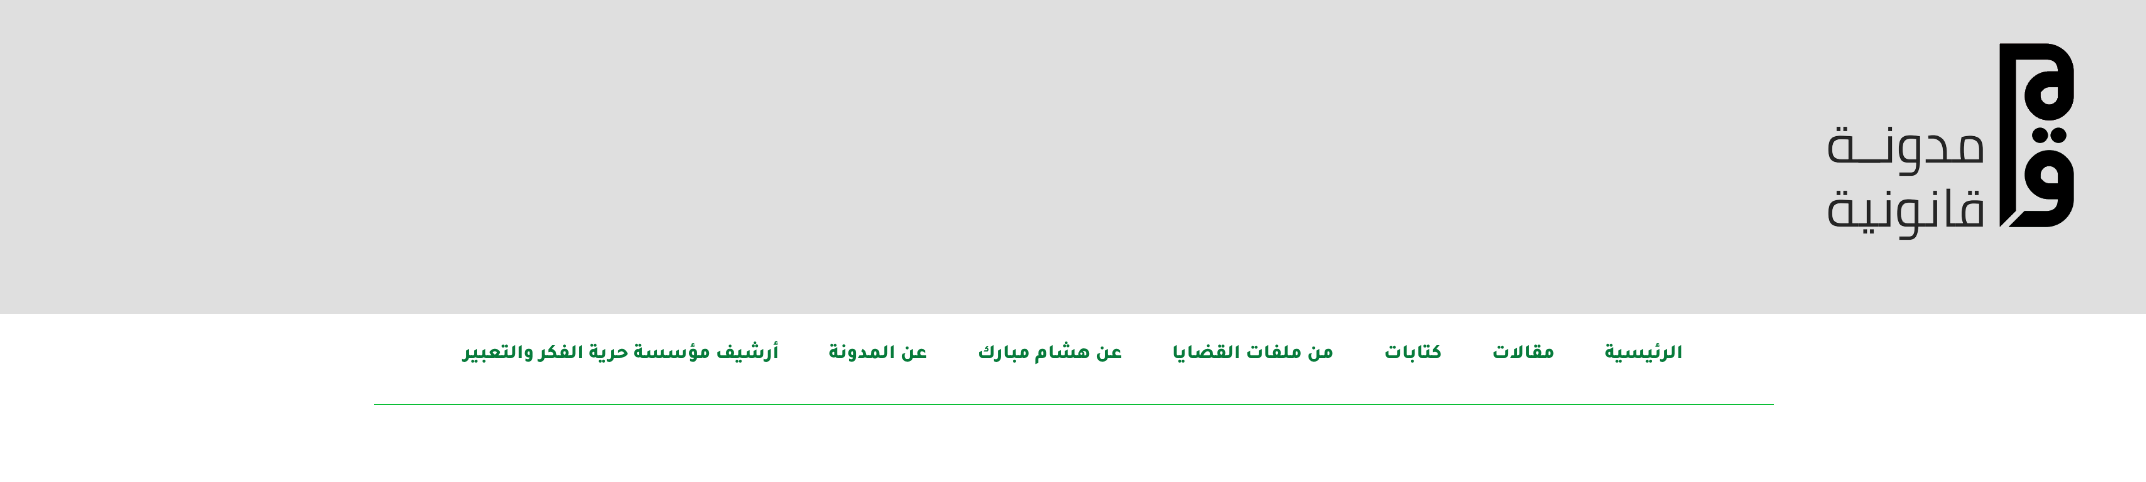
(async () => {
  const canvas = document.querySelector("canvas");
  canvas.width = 2146;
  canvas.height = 482;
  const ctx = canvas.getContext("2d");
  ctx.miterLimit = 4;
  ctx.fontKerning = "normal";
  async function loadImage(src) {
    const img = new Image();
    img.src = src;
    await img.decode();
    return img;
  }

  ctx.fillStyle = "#ffffff";
  ctx.fillRect(0, 0, 2146, 482);
  ctx.fillStyle = "#dfdfdf";
  ctx.fillRect(0, 0, 2146, 314);
  ctx.drawImage(await loadImage("img/1.png"), 1828, 43, 246, 198);
  ctx.fillStyle = "#0cbf37";
  ctx.fillRect(374, 404, 1400, 1);
  ctx.direction = "rtl";
  ctx.font = "800 20px Tajawal";
  ctx.fillStyle = "#077b3b";
  for (const [text, x, y] of [
    ["الرئيسية", 1683, 358],
    ["مقالات", 1555, 358],
    ["كتابات", 1442, 358],
    ["من ملفات القضايا", 1334, 358],
    ["عن هشام مبارك", 1122, 358],
    ["عن المدونة", 927, 358],
    ["أرشيف مؤسسة حرية الفكر والتعبير", 779, 358],
  ]) {
    ctx.fillText(text, x, y);
  }
})();
